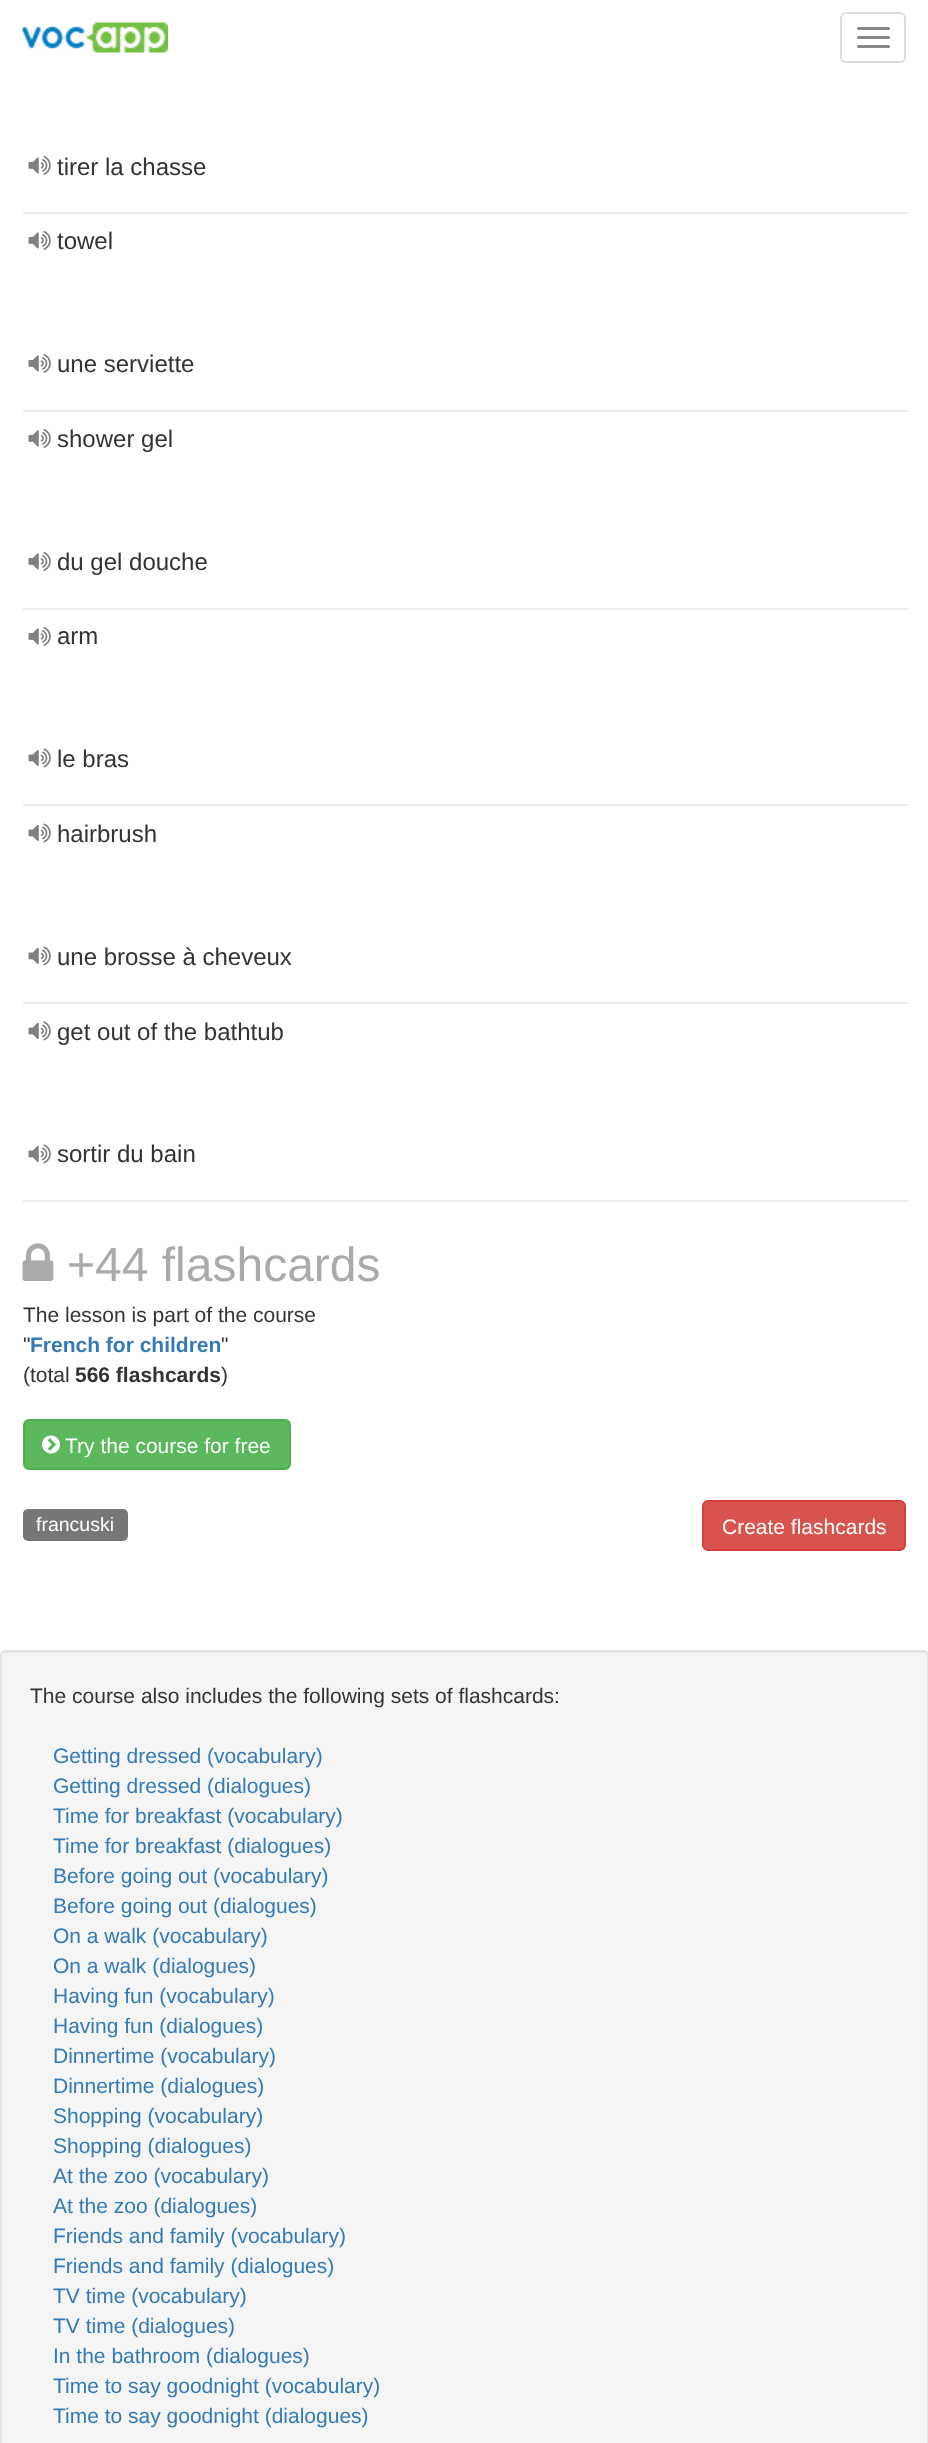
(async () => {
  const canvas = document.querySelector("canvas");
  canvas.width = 928;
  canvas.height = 2443;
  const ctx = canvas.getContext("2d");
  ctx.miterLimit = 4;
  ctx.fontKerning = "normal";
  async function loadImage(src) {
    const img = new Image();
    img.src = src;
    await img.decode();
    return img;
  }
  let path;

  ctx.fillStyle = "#ffffff";
  ctx.fillRect(0, 0, 928, 2443);
  ctx.drawImage(await loadImage("img/1.png"), 22, 22, 146, 31);
  ctx.beginPath();
  ctx.roundRect(841, 13, 64, 49, 5);
  ctx.strokeStyle = "#dddddd";
  ctx.lineWidth = 2;
  ctx.stroke();
  ctx.fillStyle = "#888888";
  ctx.beginPath();
  ctx.roundRect(857, 27, 33, 3, 1.5);
  ctx.fill();
  ctx.beginPath();
  ctx.roundRect(857, 36, 33, 3, 1.5);
  ctx.fill();
  ctx.beginPath();
  ctx.roundRect(857, 45, 33, 3, 1.5);
  ctx.fill();
  ctx.fillStyle = "#eeeeee";
  ctx.fillRect(23, 212, 885, 2);
  ctx.drawImage(await loadImage("img/2.png"), 28, 156, 23, 19);
  ctx.fillRect(23, 410, 885, 2);
  ctx.drawImage(await loadImage("img/2.png"), 28, 231, 23, 19);
  ctx.drawImage(await loadImage("img/2.png"), 28, 354, 23, 19);
  ctx.fillRect(23, 608, 885, 2);
  ctx.drawImage(await loadImage("img/2.png"), 28, 429, 23, 19);
  ctx.drawImage(await loadImage("img/2.png"), 28, 552, 23, 19);
  ctx.fillRect(23, 804, 885, 2);
  ctx.drawImage(await loadImage("img/2.png"), 28, 627, 23, 19);
  ctx.drawImage(await loadImage("img/3.png"), 28, 748, 23, 20);
  ctx.fillRect(23, 1002, 885, 2);
  ctx.drawImage(await loadImage("img/3.png"), 28, 823, 23, 20);
  ctx.drawImage(await loadImage("img/3.png"), 28, 946, 23, 20);
  ctx.fillRect(23, 1200, 885, 2);
  ctx.drawImage(await loadImage("img/3.png"), 28, 1021, 23, 20);
  ctx.drawImage(await loadImage("img/3.png"), 28, 1144, 23, 20);
  ctx.drawImage(await loadImage("img/4.png"), 22, 1243, 32, 38);
  ctx.fillStyle = "#5cb85c";
  ctx.beginPath();
  ctx.roundRect(24, 1420, 266, 49, 5);
  ctx.fill();
  ctx.strokeStyle = "#4cae4c";
  ctx.stroke();
  ctx.drawImage(await loadImage("img/5.png"), 42, 1435, 18, 19);
  ctx.fillStyle = "#777777";
  ctx.beginPath();
  ctx.roundRect(23, 1509, 105, 32, 5);
  ctx.fill();
  ctx.fillStyle = "#d9534f";
  ctx.beginPath();
  ctx.roundRect(703, 1501, 202, 49, 5);
  ctx.fill();
  ctx.strokeStyle = "#d43f3a";
  ctx.stroke();
  ctx.fillStyle = "#f5f5f5";
  ctx.beginPath();
  ctx.roundRect(0, 1650, 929, 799, 6);
  ctx.fill();
  ctx.fillStyle = "#e9e9e9";
  path = new Path2D("M6 1653H922C925 1653 927 1655 927 1658C927 1655 925 1652 922 1652H7C4 1652 2 1655 2 1658C2 1655 4 1653 6 1653Z");
  ctx.fill(path);
  ctx.beginPath();
  ctx.roundRect(1, 1651, 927, 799, 5);
  ctx.strokeStyle = "#e3e3e3";
  ctx.stroke();
  ctx.font = "24px Liberation Sans";
  ctx.fillStyle = "#333333";
  for (const [text, x, y] of [
    ["tirer la chasse", 57, 175],
    ["towel", 57, 249],
    ["une serviette", 57, 372],
    ["shower gel", 57, 447],
    ["du gel douche", 57, 570],
    ["arm", 57, 644],
    ["le bras", 57, 767],
    ["hairbrush", 57, 842],
    ["une brosse à cheveux", 57, 965],
    ["get out of the bathtub", 57, 1040],
    ["sortir du bain", 57, 1162],
  ]) {
    ctx.fillText(text, x, y);
  }
  ctx.font = "48px Liberation Sans";
  ctx.fillStyle = "#aaaaaa";
  ctx.fillText("+44 flashcards", 67, 1281);
  ctx.font = "21px Liberation Sans";
  ctx.fillStyle = "#333333";
  ctx.fillText("The lesson is part of the course", 23, 1322);
  ctx.fillText("\"", 23, 1352);
  ctx.font = "bold 21px Liberation Sans";
  ctx.fillStyle = "#337ab7";
  ctx.fillText("French for children", 30, 1352);
  ctx.font = "21px Liberation Sans";
  ctx.fillStyle = "#333333";
  ctx.fillText("\"", 221, 1352);
  ctx.fillText("(total", 23, 1382);
  ctx.font = "bold 21px Liberation Sans";
  ctx.fillText("566 flashcards", 75, 1382);
  ctx.font = "21px Liberation Sans";
  ctx.fillText(")", 221, 1382);
  ctx.fillStyle = "#ffffff";
  ctx.fillText("Try the course for free", 65, 1453);
  ctx.font = "19.5px Liberation Sans";
  ctx.fillText("francuski", 36, 1531);
  ctx.font = "21px Liberation Sans";
  ctx.fillText("Create flashcards", 722, 1534);
  ctx.fillStyle = "#333333";
  ctx.fillText("The course also includes the following sets of flashcards:", 30, 1703);
  ctx.fillStyle = "#337ab7";
  for (const [text, x, y] of [
    ["Getting dressed (vocabulary)", 53, 1763],
    ["Getting dressed (dialogues)", 53, 1793],
    ["Time for breakfast (vocabulary)", 53, 1823],
    ["Time for breakfast (dialogues)", 53, 1853],
    ["Before going out (vocabulary)", 53, 1883],
    ["Before going out (dialogues)", 53, 1913],
    ["On a walk (vocabulary)", 53, 1943],
    ["On a walk (dialogues)", 53, 1973],
    ["Having fun (vocabulary)", 53, 2003],
    ["Having fun (dialogues)", 53, 2033],
    ["Dinnertime (vocabulary)", 53, 2063],
    ["Dinnertime (dialogues)", 53, 2093],
    ["Shopping (vocabulary)", 53, 2123],
    ["Shopping (dialogues)", 53, 2153],
    ["At the zoo (vocabulary)", 53, 2183],
    ["At the zoo (dialogues)", 53, 2213],
    ["Friends and family (vocabulary)", 53, 2243],
    ["Friends and family (dialogues)", 53, 2273],
    ["TV time (vocabulary)", 53, 2303],
    ["TV time (dialogues)", 53, 2333],
    ["In the bathroom (dialogues)", 53, 2363],
    ["Time to say goodnight (vocabulary)", 53, 2393],
    ["Time to say goodnight (dialogues)", 53, 2423],
  ]) {
    ctx.fillText(text, x, y);
  }
})();
